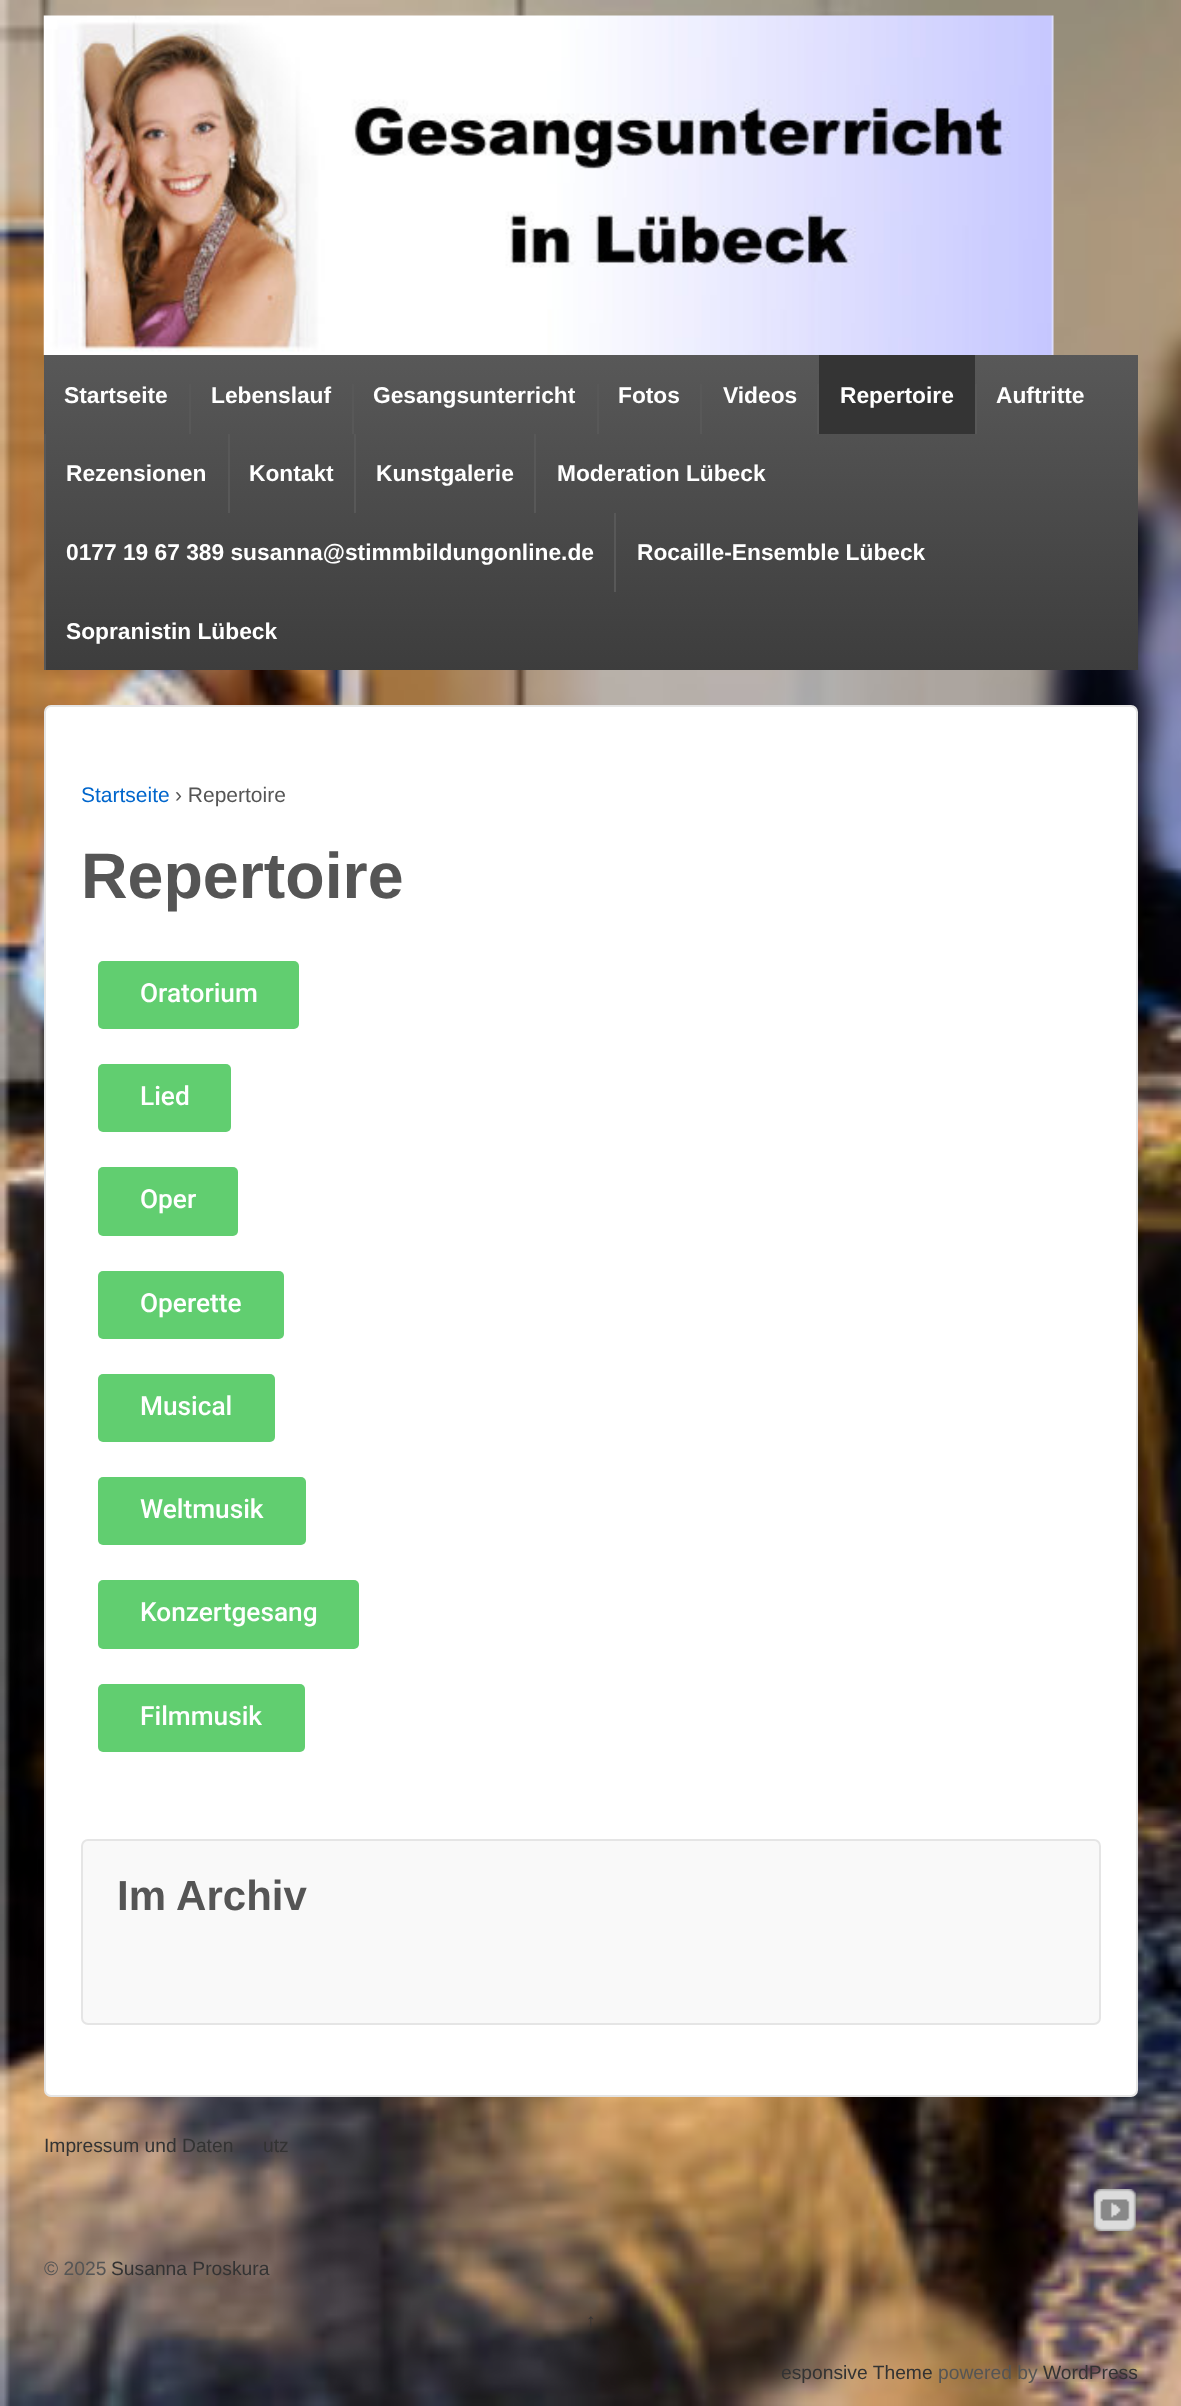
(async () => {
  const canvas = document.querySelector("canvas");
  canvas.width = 1181;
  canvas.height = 2406;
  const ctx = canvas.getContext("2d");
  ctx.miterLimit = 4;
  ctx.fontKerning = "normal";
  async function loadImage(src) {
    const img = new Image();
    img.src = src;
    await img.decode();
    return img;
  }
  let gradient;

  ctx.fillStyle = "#ffffff";
  ctx.fillRect(0, 0, 1181, 2406);
  ctx.drawImage(await loadImage("img/1.png"), 0, 0, 1181, 2406);
  ctx.drawImage(await loadImage("img/2.png"), 43, 15, 1011, 340);
  gradient = ctx.createLinearGradient(591, 355, 591, 670);
  gradient.addColorStop(0, "#585858");
  gradient.addColorStop(1, "#3d3d3d");
  ctx.fillStyle = gradient;
  ctx.fillRect(44, 355, 1094, 315);
  for (const [x, y, w, h, color] of [
    [189, 384, 2, 50, "#585858"],
    [352, 384, 2, 50, "#585858"],
    [597, 384, 2, 50, "#585858"],
    [700, 384, 2, 50, "#585858"],
    [819, 355, 156, 79, "#343434"],
    [817, 384, 2, 50, "#585858"],
    [975, 384, 2, 50, "#585858"],
    [44, 434, 2, 236, "#585858"],
    [228, 434, 2, 79, "#585858"],
    [354, 434, 2, 79, "#585858"],
    [534, 434, 2, 79, "#585858"],
    [614, 513, 2, 79, "#585858"],
  ]) {
    ctx.fillStyle = color;
    ctx.fillRect(x, y, w, h);
  }
  ctx.fillStyle = "#ffffff";
  ctx.beginPath();
  ctx.roundRect(45, 706, 1092, 1390, 6);
  ctx.fill();
  ctx.strokeStyle = "#e5e5e5";
  ctx.lineWidth = 2;
  ctx.stroke();
  ctx.fillStyle = "#61ce70";
  ctx.beginPath();
  ctx.roundRect(98, 961, 201, 68, 5);
  ctx.fill();
  ctx.beginPath();
  ctx.roundRect(98, 1064, 133, 68, 5);
  ctx.fill();
  ctx.beginPath();
  ctx.roundRect(98, 1167, 140, 69, 5);
  ctx.fill();
  ctx.beginPath();
  ctx.roundRect(98, 1271, 186, 68, 5);
  ctx.fill();
  ctx.beginPath();
  ctx.roundRect(98, 1374, 177, 68, 5);
  ctx.fill();
  ctx.beginPath();
  ctx.roundRect(98, 1477, 208, 68, 5);
  ctx.fill();
  ctx.beginPath();
  ctx.roundRect(98, 1580, 261, 69, 5);
  ctx.fill();
  ctx.beginPath();
  ctx.roundRect(98, 1684, 207, 68, 5);
  ctx.fill();
  ctx.fillStyle = "#f9f9f9";
  ctx.beginPath();
  ctx.roundRect(82, 1840, 1018, 184, 6);
  ctx.fill();
  ctx.stroke();
  ctx.drawImage(await loadImage("img/3.png"), 1093, 2189, 43, 42);
  ctx.font = "bold 22.75px Liberation Sans";
  ctx.fillStyle = "#ffffff";
  for (const [text, x, y] of [
    ["Startseite", 64, 403],
    ["Lebenslauf", 211, 403],
    ["Gesangsunterricht", 373, 403],
    ["Fotos", 618, 403],
    ["Videos", 723, 403],
    ["Repertoire", 840, 403],
    ["Auftritte", 996, 403],
    ["Rezensionen", 66, 481],
    ["Kontakt", 249, 481],
    ["Kunstgalerie", 376, 481],
    ["Moderation Lübeck", 557, 481],
    ["0177 19 67 389 susanna@stimmbildungonline.de", 66, 560],
    ["Rocaille-Ensemble Lübeck", 637, 560],
    ["Sopranistin Lübeck", 66, 639],
  ]) {
    ctx.fillText(text, x, y);
  }
  ctx.font = "21px Liberation Sans";
  ctx.fillStyle = "#0066cc";
  ctx.fillText("Startseite", 81, 802);
  ctx.fillStyle = "#555555";
  ctx.fillText("› Repertoire", 175, 802);
  ctx.font = "bold 64.5px Liberation Sans";
  ctx.fillText("Repertoire", 81, 898);
  ctx.font = "500 26.25px Roboto";
  ctx.fillStyle = "#ffffff";
  for (const [text, x, y] of [
    ["Oratorium", 140, 1002],
    ["Lied", 140, 1105],
    ["Oper", 140, 1208],
    ["Operette", 140, 1312],
    ["Musical", 140, 1415],
    ["Weltmusik", 140, 1518],
    ["Konzertgesang", 140, 1621],
    ["Filmmusik", 140, 1725],
  ]) {
    ctx.fillText(text, x, y);
  }
  ctx.font = "bold 42px Liberation Sans";
  ctx.fillStyle = "#555555";
  ctx.fillText("Im Archiv", 117, 1910);
  ctx.font = "19.25px Liberation Sans";
  ctx.fillStyle = "#333333";
  ctx.fillText("Impressum und Daten", 44, 2152);
  ctx.fillText("utz", 263, 2152);
  ctx.fillStyle = "#555555";
  ctx.fillText("© 2025", 44, 2275);
  ctx.fillStyle = "#333333";
  for (const [text, x, y] of [
    ["Susanna Proskura", 111, 2275],
    ["↑", 586, 2327],
    ["esponsive Theme", 781, 2379],
  ]) {
    ctx.fillText(text, x, y);
  }
  ctx.fillStyle = "#555555";
  ctx.fillText("powered by", 938, 2379);
  ctx.fillStyle = "#333333";
  ctx.fillText("WordPress", 1043, 2379);
})();
